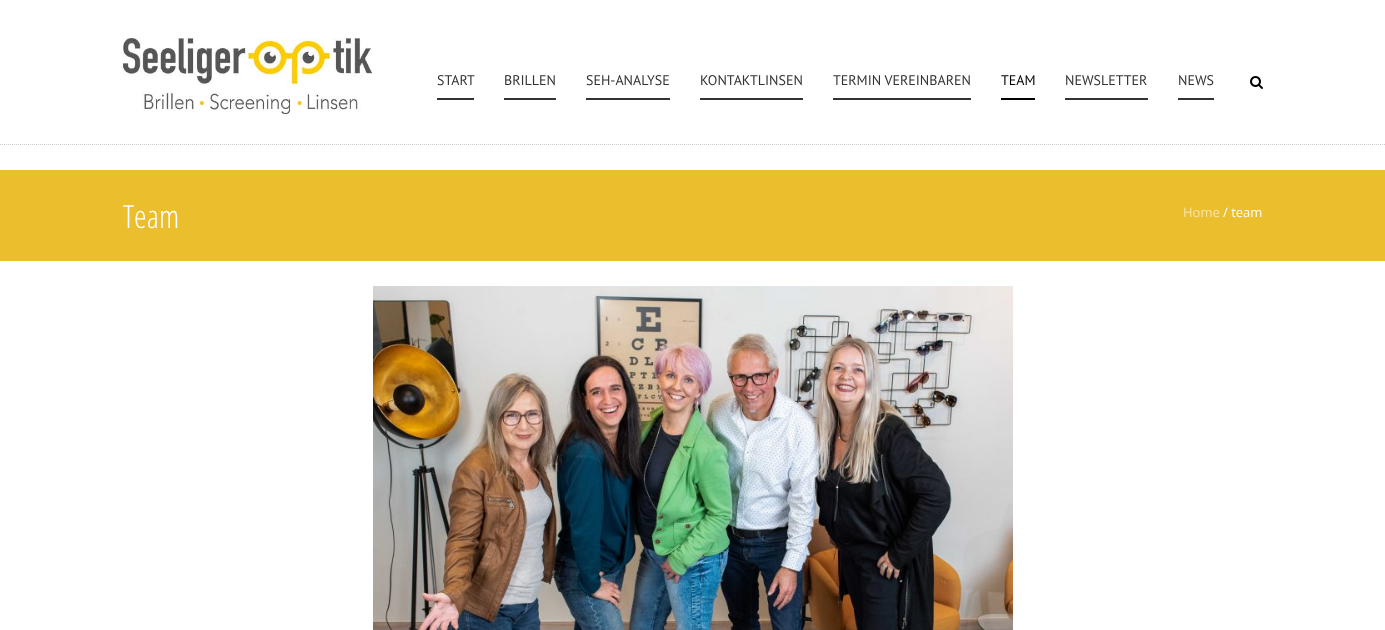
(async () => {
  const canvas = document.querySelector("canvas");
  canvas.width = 1385;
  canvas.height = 630;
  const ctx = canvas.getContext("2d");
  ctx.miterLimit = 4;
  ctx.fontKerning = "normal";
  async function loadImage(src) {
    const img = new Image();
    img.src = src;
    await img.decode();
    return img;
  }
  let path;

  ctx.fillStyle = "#ffffff";
  ctx.fillRect(0, 0, 1385, 630);
  path = new Path2D("M0 144.5H1385");
  ctx.strokeStyle = "#cdcdcd";
  ctx.setLineDash([1, 1]);
  ctx.stroke(path);
  ctx.drawImage(await loadImage("img/1.png"), 123, 38, 249, 76);
  for (const [x, y, w, h, color] of [
    [437, 98, 37, 2, "#333333"],
    [504, 98, 52, 2, "#333333"],
    [586, 98, 84, 2, "#333333"],
    [700, 98, 103, 2, "#333333"],
    [833, 98, 138, 2, "#333333"],
    [1001, 98, 34, 2, "#000000"],
    [1065, 98, 83, 2, "#333333"],
    [1178, 98, 36, 2, "#333333"],
  ]) {
    ctx.fillStyle = color;
    ctx.fillRect(x, y, w, h);
  }
  ctx.drawImage(await loadImage("img/2.png"), 1250, 76, 13, 13);
  ctx.fillStyle = "#eabe2c";
  ctx.fillRect(0, 170, 1385, 91);
  ctx.drawImage(await loadImage("img/3.png"), 373, 286, 640, 344);
  ctx.font = "14px PT Sans";
  ctx.fillStyle = "#333333";
  for (const [text, x, y] of [
    ["START", 437, 85],
    ["BRILLEN", 504, 85],
    ["SEH-ANALYSE", 586, 85],
    ["KONTAKTLINSEN", 700, 85],
    ["TERMIN VEREINBAREN", 833, 85],
  ]) {
    ctx.fillText(text, x, y);
  }
  ctx.fillStyle = "#000000";
  ctx.fillText("TEAM", 1001, 85);
  ctx.fillStyle = "#333333";
  ctx.fillText("NEWSLETTER", 1065, 85);
  ctx.fillText("NEWS", 1178, 85);
  ctx.font = "300 32px Open Sans Condensed";
  ctx.fillStyle = "#ffffff";
  ctx.fillText("Team", 123, 228);
  ctx.font = "13px Open Sans";
  ctx.fillStyle = "#f7e5ab";
  ctx.fillText("Home", 1183, 217);
  ctx.fillStyle = "#ffffff";
  ctx.fillText("/ team", 1223, 217);
})();
